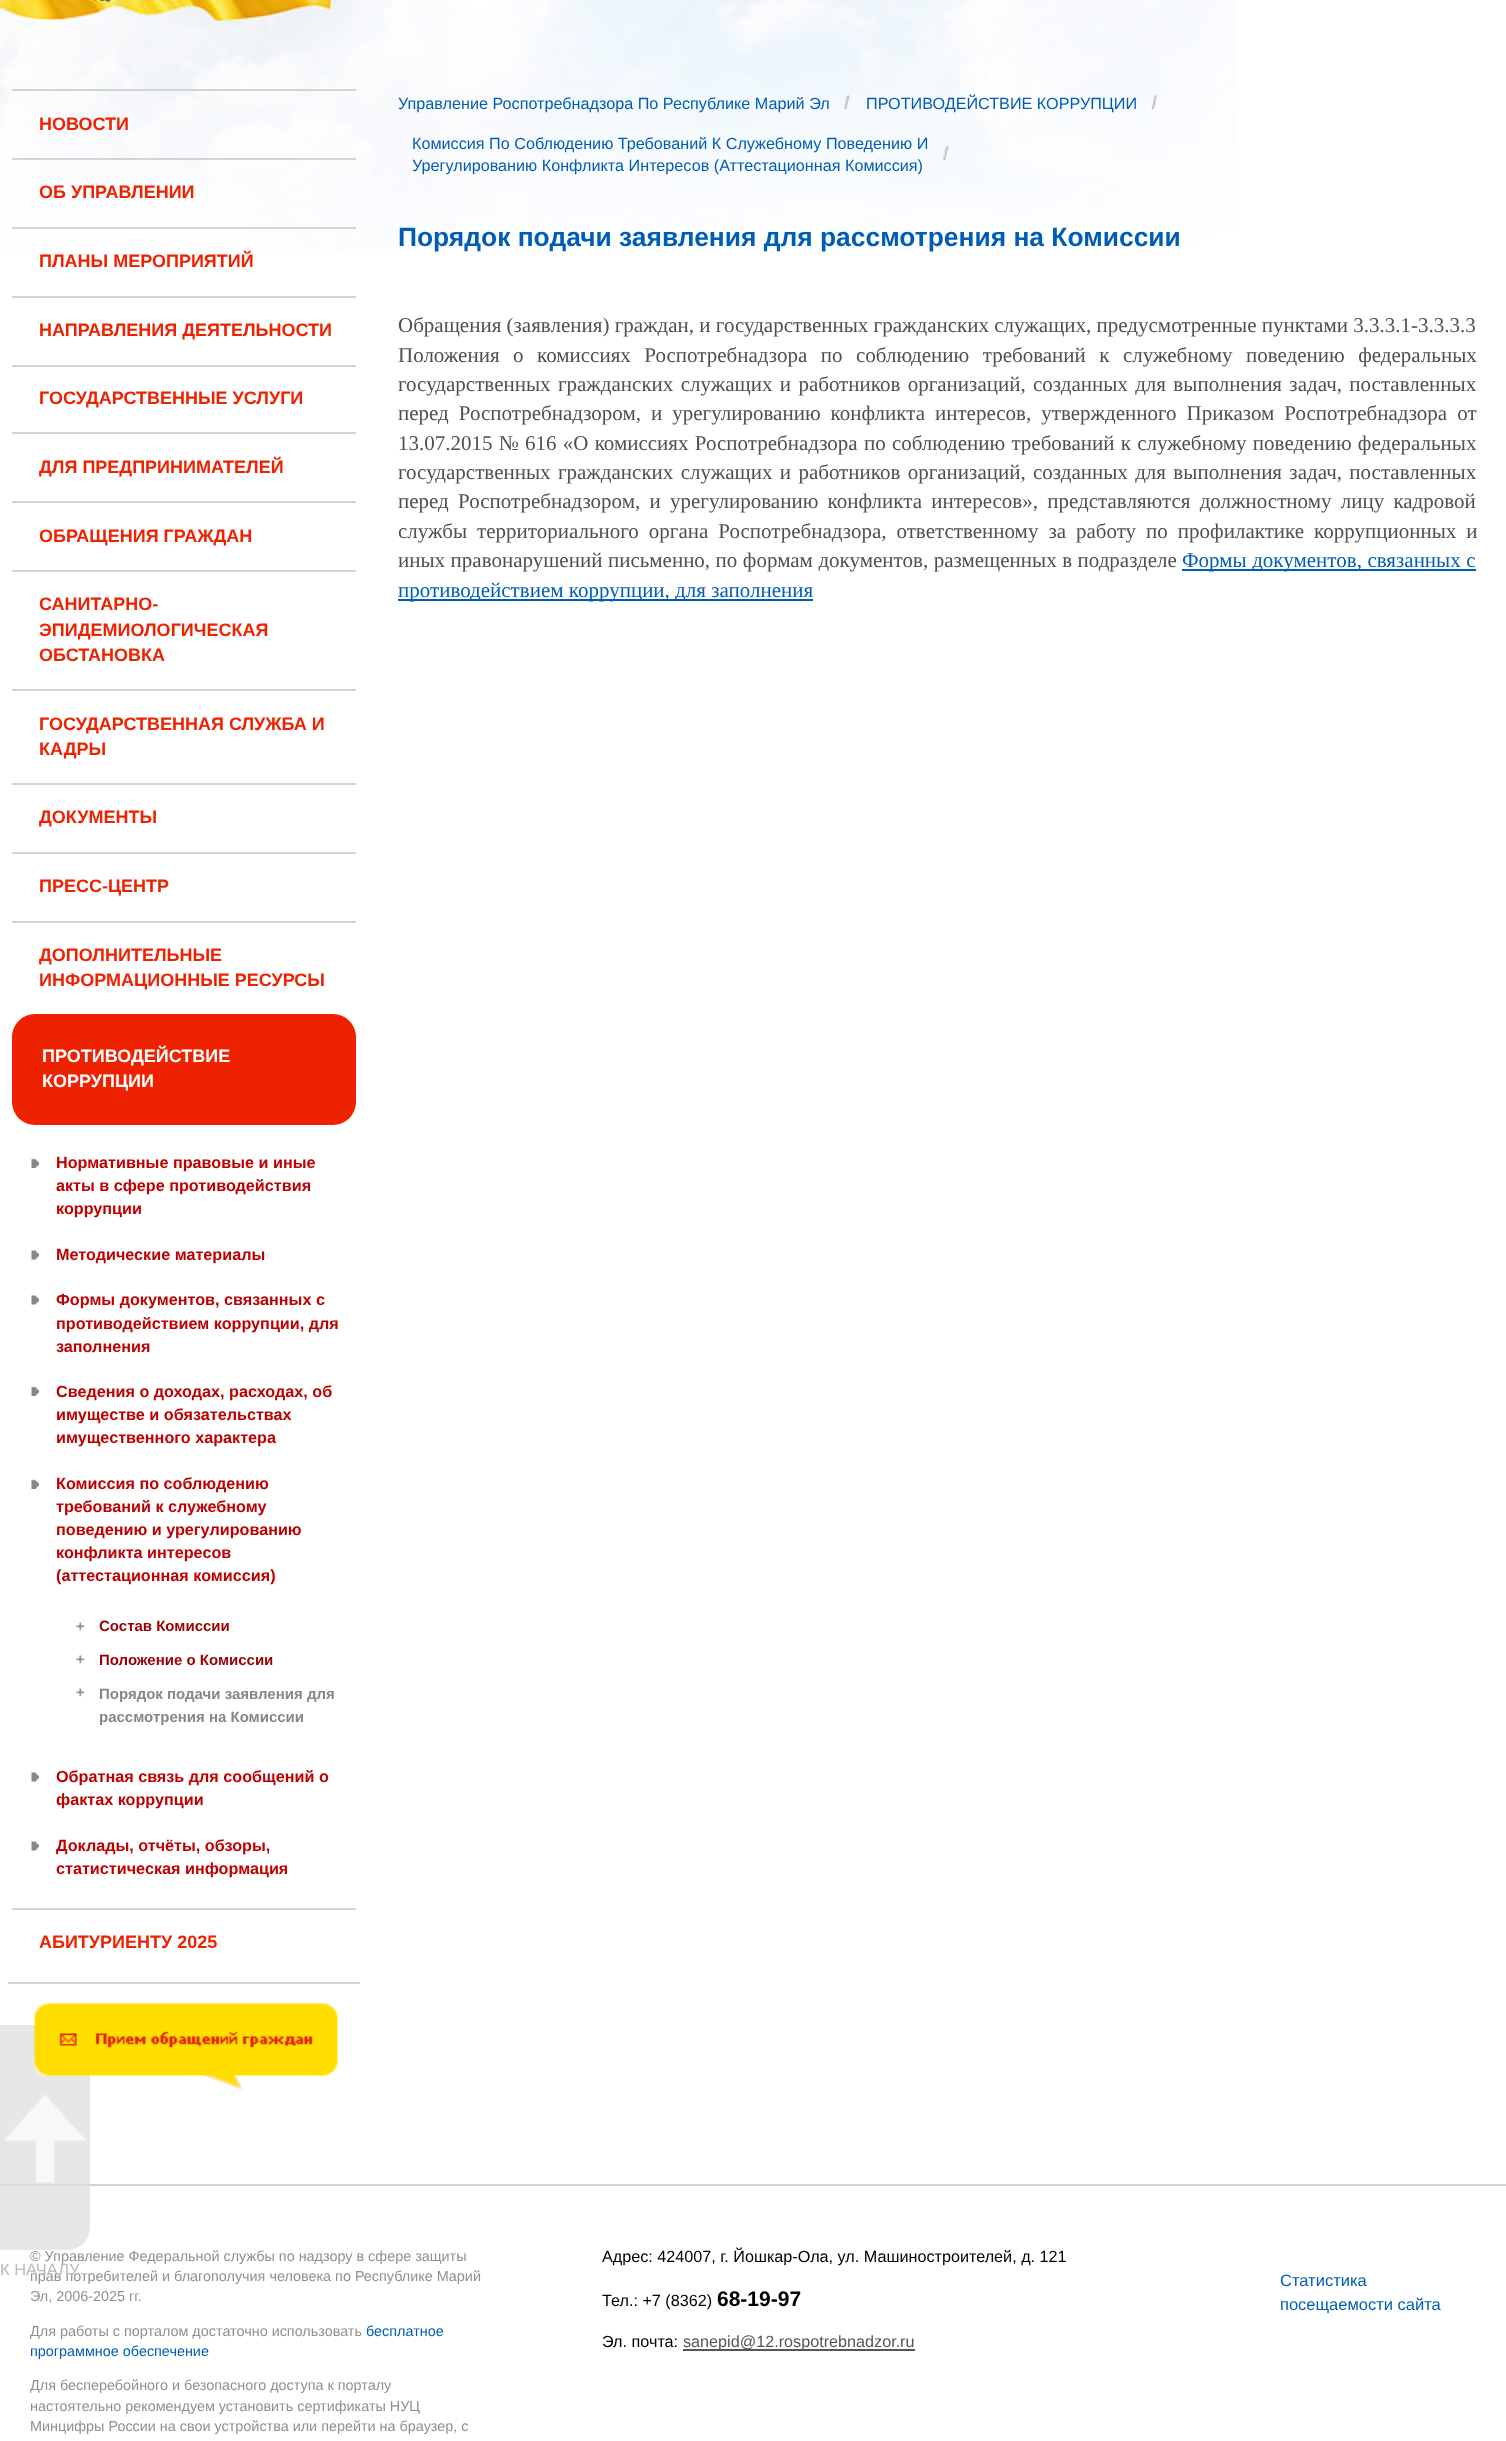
(async () => {
  const canvas = document.querySelector("canvas");
  canvas.width = 1506;
  canvas.height = 2441;
  const ctx = canvas.getContext("2d");
  ctx.miterLimit = 4;
  ctx.fontKerning = "normal";
  async function loadImage(src) {
    const img = new Image();
    img.src = src;
    await img.decode();
    return img;
  }

  ctx.fillStyle = "#ffffff";
  ctx.fillRect(0, 0, 1506, 2441);
  ctx.drawImage(await loadImage("img/1.png"), 0, 0, 1236, 254);
  for (const [x, y, w, h, color] of [
    [12, 89, 344, 2, "#d4d4d4"],
    [12, 158, 344, 2, "#d4d4d4"],
    [12, 227, 344, 2, "#d4d4d4"],
    [12, 296, 344, 2, "#d4d4d4"],
    [12, 365, 344, 2, "#d4d4d4"],
    [12, 432, 344, 2, "#d4d4d4"],
    [12, 501, 344, 2, "#d4d4d4"],
    [12, 570, 344, 2, "#d4d4d4"],
    [12, 689, 344, 2, "#d4d4d4"],
    [12, 783, 344, 2, "#d4d4d4"],
    [12, 852, 344, 2, "#d4d4d4"],
    [12, 921, 344, 2, "#d4d4d4"],
  ]) {
    ctx.fillStyle = color;
    ctx.fillRect(x, y, w, h);
  }
  ctx.fillStyle = "#ee2200";
  ctx.beginPath();
  ctx.roundRect(12, 1014, 344, 111, 23);
  ctx.fill();
  ctx.drawImage(await loadImage("img/2.png"), 31, 1158, 8, 10);
  ctx.drawImage(await loadImage("img/3.png"), 31, 1250, 8, 10);
  ctx.drawImage(await loadImage("img/3.png"), 31, 1295, 8, 10);
  ctx.drawImage(await loadImage("img/2.png"), 31, 1386, 8, 10);
  ctx.drawImage(await loadImage("img/2.png"), 31, 1479, 8, 10);
  ctx.drawImage(await loadImage("img/4.png"), 76, 1622, 9, 9);
  ctx.drawImage(await loadImage("img/4.png"), 76, 1655, 9, 9);
  ctx.drawImage(await loadImage("img/4.png"), 76, 1688, 9, 9);
  ctx.drawImage(await loadImage("img/3.png"), 31, 1772, 8, 10);
  ctx.drawImage(await loadImage("img/3.png"), 31, 1841, 8, 10);
  for (const [x, y, w, h, color] of [
    [12, 1908, 344, 2, "#d4d4d4"],
    [8, 1982, 352, 2, "#d4d4d4"],
    [0, 2184, 1506, 2, "#d4d4d4"],
  ]) {
    ctx.fillStyle = color;
    ctx.fillRect(x, y, w, h);
  }
  ctx.fillStyle = "rgba(221, 221, 221, 0.7)";
  ctx.beginPath();
  ctx.roundRect(0, 2025, 90, 225, [0, 23, 23, 0]);
  ctx.fill();
  ctx.drawImage(await loadImage("img/5.png"), 34, 2003, 304, 86);
  ctx.drawImage(await loadImage("img/6.png"), 844, 95, 6, 15);
  ctx.drawImage(await loadImage("img/7.png"), 1151, 95, 6, 15);
  ctx.drawImage(await loadImage("img/8.png"), 943, 146, 6, 15);
  ctx.fillStyle = "#005db7";
  ctx.fillRect(1182, 569, 294, 2);
  ctx.fillRect(398, 599, 415, 2);
  ctx.drawImage(await loadImage("img/9.png"), 4, 2094, 82, 89);
  ctx.fillStyle = "#565656";
  ctx.fillRect(683, 2349, 232, 2);
  ctx.font = "bold 18px Liberation Sans";
  ctx.fillStyle = "#ee2200";
  for (const [text, x, y] of [
    ["НОВОСТИ", 39, 130],
    ["ОБ УПРАВЛЕНИИ", 39, 198],
    ["ПЛАНЫ МЕРОПРИЯТИЙ", 39, 267],
    ["НАПРАВЛЕНИЯ ДЕЯТЕЛЬНОСТИ", 39, 336],
    ["ГОСУДАРСТВЕННЫЕ УСЛУГИ", 39, 404],
    ["ДЛЯ ПРЕДПРИНИМАТЕЛЕЙ", 39, 473],
    ["ОБРАЩЕНИЯ ГРАЖДАН", 39, 542],
    ["САНИТАРНО-", 39, 610],
    ["ЭПИДЕМИОЛОГИЧЕСКАЯ", 39, 636],
    ["ОБСТАНОВКА", 39, 661],
    ["ГОСУДАРСТВЕННАЯ СЛУЖБА И", 39, 730],
    ["КАДРЫ", 39, 755],
    ["ДОКУМЕНТЫ", 39, 823],
    ["ПРЕСС-ЦЕНТР", 39, 892],
    ["ДОПОЛНИТЕЛЬНЫЕ", 39, 961],
    ["ИНФОРМАЦИОННЫЕ РЕСУРСЫ", 39, 986],
  ]) {
    ctx.fillText(text, x, y);
  }
  ctx.fillStyle = "#ffffff";
  ctx.fillText("ПРОТИВОДЕЙСТВИЕ", 42, 1062);
  ctx.fillText("КОРРУПЦИИ", 42, 1087);
  ctx.font = "bold 16.2px Liberation Sans";
  ctx.fillStyle = "#bd0001";
  for (const [text, x, y] of [
    ["Нормативные правовые и иные", 56, 1168],
    ["акты в сфере противодействия", 56, 1191],
    ["коррупции", 56, 1214],
    ["Методические материалы", 56, 1260],
    ["Формы документов, связанных с", 56, 1305],
    ["противодействием коррупции, для", 56, 1329],
    ["заполнения", 56, 1352],
    ["Сведения о доходах, расходах, об", 56, 1397],
    ["имуществе и обязательствах", 56, 1420],
    ["имущественного характера", 56, 1443],
    ["Комиссия по соблюдению", 56, 1489],
    ["требований к служебному", 56, 1512],
    ["поведению и урегулированию", 56, 1535],
    ["конфликта интересов", 56, 1558],
    ["(аттестационная комиссия)", 56, 1581],
  ]) {
    ctx.fillText(text, x, y);
  }
  ctx.font = "bold 15px Liberation Sans";
  ctx.fillStyle = "#990000";
  ctx.fillText("Состав Комиссии", 99, 1631);
  ctx.fillText("Положение о Комиссии", 99, 1665);
  ctx.fillStyle = "#898686";
  ctx.fillText("Порядок подачи заявления для", 99, 1699);
  ctx.fillText("рассмотрения на Комиссии", 99, 1722);
  ctx.font = "bold 16.2px Liberation Sans";
  ctx.fillStyle = "#bd0001";
  for (const [text, x, y] of [
    ["Обратная связь для сообщений о", 56, 1782],
    ["фактах коррупции", 56, 1805],
    ["Доклады, отчёты, обзоры,", 56, 1851],
    ["статистическая информация", 56, 1874],
  ]) {
    ctx.fillText(text, x, y);
  }
  ctx.font = "bold 18px Liberation Sans";
  ctx.fillStyle = "#ee2200";
  ctx.fillText("АБИТУРИЕНТУ 2025", 39, 1948);
  ctx.font = "16.2px Liberation Sans";
  ctx.fillStyle = "#005db7";
  for (const [text, x, y] of [
    ["Управление Роспотребнадзора По Республике Марий Эл", 398, 109],
    ["ПРОТИВОДЕЙСТВИЕ КОРРУПЦИИ", 866, 109],
    ["Комиссия По Соблюдению Требований К Служебному Поведению И", 412, 149],
    ["Урегулированию Конфликта Интересов (Аттестационная Комиссия)", 412, 171],
  ]) {
    ctx.fillText(text, x, y);
  }
  ctx.font = "bold 26.4px Liberation Sans";
  ctx.fillText("Порядок подачи заявления для рассмотрения на Комиссии", 398, 246);
  ctx.font = "21px Liberation Serif";
  ctx.fillStyle = "#4f4f4f";
  ctx.fillText("Обращения (заявления) граждан, и государственных гражданских служащих, предусмотренные пунктами 3.3.3.1-3.3.3.3", 398, 332);
  ctx.wordSpacing = "8.25px";
  ctx.fillText("Положения о комиссиях Роспотребнадзора по соблюдению требований к служебному поведению федеральных", 398, 362);
  ctx.wordSpacing = "2.1px";
  ctx.fillText("государственных гражданских служащих и работников организаций, созданных для выполнения задач, поставленных", 398, 391);
  ctx.wordSpacing = "4.75px";
  ctx.fillText("перед Роспотребнадзором, и урегулированию конфликта интересов, утвержденного Приказом Роспотребнадзора от", 398, 420);
  ctx.wordSpacing = "1px";
  ctx.fillText("13.07.2015 № 616 «О комиссиях Роспотребнадзора по соблюдению требований к служебному поведению федеральных", 398, 450);
  ctx.wordSpacing = "2.1px";
  ctx.fillText("государственных гражданских служащих и работников организаций, созданных для выполнения задач, поставленных", 398, 479);
  ctx.wordSpacing = "4px";
  ctx.fillText("перед Роспотребнадзором, и урегулированию конфликта интересов», представляются должностному лицу кадровой", 398, 508);
  ctx.wordSpacing = "4.75px";
  ctx.fillText("службы территориального органа Роспотребнадзора, ответственному за работу по профилактике коррупционных и", 398, 538);
  ctx.wordSpacing = "0.25px";
  ctx.fillText("иных правонарушений письменно, по формам документов, размещенных в подразделе", 398, 567);
  ctx.fillStyle = "#005db7";
  ctx.fillText("Формы документов, связанных с", 1182, 567);
  ctx.wordSpacing = "0px";
  ctx.fillText("противодействием коррупции, для заполнения", 398, 597);
  ctx.font = "14.4px Liberation Sans";
  ctx.fillStyle = "#909090";
  for (const [text, x, y] of [
    ["© Управление Федеральной службы по надзору в сфере защиты", 30, 2261],
    ["прав потребителей и благополучия человека по Республике Марий", 30, 2281],
    ["Эл, 2006-2025 гг.", 30, 2301],
  ]) {
    ctx.fillText(text, x, y);
  }
  ctx.font = "16.5px Liberation Sans";
  ctx.fillStyle = "#bbbbbb";
  ctx.fillText("К НАЧАЛУ", 0, 2275);
  ctx.font = "14.4px Liberation Sans";
  ctx.fillStyle = "#909090";
  ctx.fillText("Для работы с порталом достаточно использовать", 30, 2336);
  ctx.fillStyle = "#005db7";
  ctx.fillText("бесплатное", 366, 2336);
  ctx.fillText("программное обеспечение", 30, 2356);
  ctx.fillStyle = "#909090";
  for (const [text, x, y] of [
    ["Для бесперебойного и безопасного доступа к порталу", 30, 2390],
    ["настоятельно рекомендуем установить сертификаты НУЦ", 30, 2411],
    ["Минцифры России на свои устройства или перейти на браузер, с", 30, 2431],
  ]) {
    ctx.fillText(text, x, y);
  }
  ctx.font = "16.2px Liberation Sans";
  ctx.fillStyle = "#000000";
  ctx.fillText("Адрес: 424007, г. Йошкар-Ола, ул. Машиностроителей, д. 121", 602, 2262);
  ctx.fillText("Тел.: +7 (8362)", 602, 2306);
  ctx.font = "bold 21px Liberation Sans";
  ctx.fillText("68-19-97", 717, 2306);
  ctx.font = "16.2px Liberation Sans";
  ctx.fillText("Эл. почта:", 602, 2347);
  ctx.fillStyle = "#565656";
  ctx.fillText("sanepid@12.rospotrebnadzor.ru", 683, 2347);
  ctx.font = "16.5px Liberation Sans";
  ctx.fillStyle = "#005db7";
  ctx.fillText("Статистика", 1280, 2286);
  ctx.fillText("посещаемости сайта", 1280, 2310);
})();
